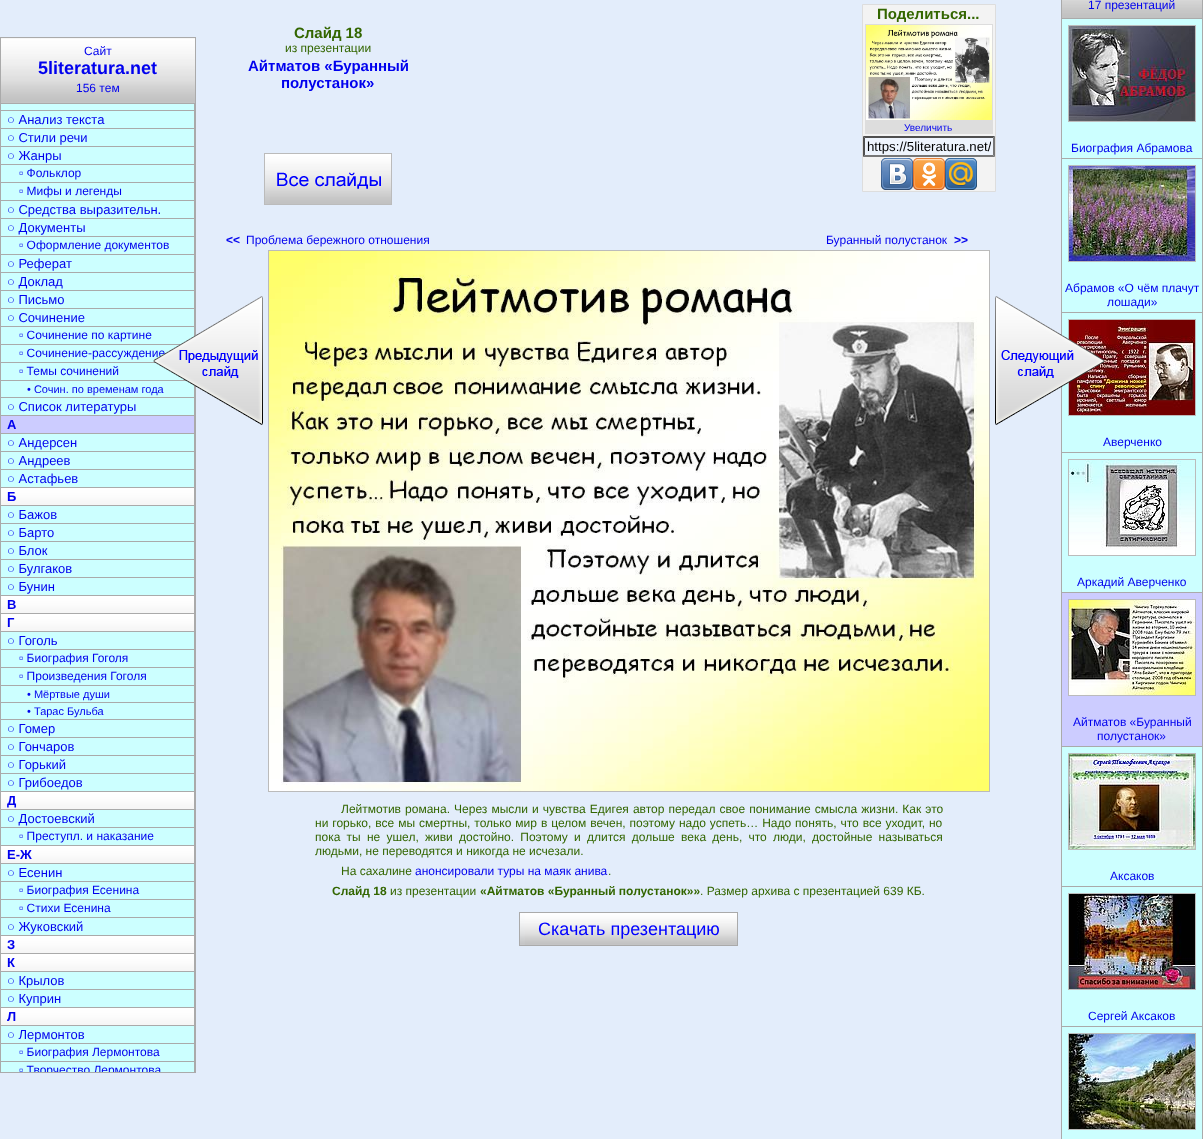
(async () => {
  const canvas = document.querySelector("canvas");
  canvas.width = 1203;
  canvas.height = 1139;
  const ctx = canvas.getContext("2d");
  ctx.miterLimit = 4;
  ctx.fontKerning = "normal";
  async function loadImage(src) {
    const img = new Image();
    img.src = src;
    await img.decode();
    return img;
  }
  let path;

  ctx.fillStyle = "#e3edfb";
  ctx.fillRect(0, 0, 1203, 1139);
  ctx.drawImage(await loadImage("img/1.png"), 1, 38, 194, 65);
  ctx.strokeStyle = "#aaaaaa";
  ctx.strokeRect(0.5, 37.5, 195, 66);
  ctx.drawImage(await loadImage("img/2.png"), 265, 154, 126, 50);
  ctx.strokeStyle = "#bbbbbb";
  ctx.strokeRect(264.5, 153.5, 127, 51);
  ctx.fillStyle = "#f3f3f3";
  ctx.beginPath();
  ctx.rect(862.5, 4.5, 133, 187);
  ctx.fill();
  ctx.strokeStyle = "#dddddd";
  ctx.stroke();
  ctx.fillStyle = "#dddddd";
  ctx.fillRect(865, 24, 128, 110);
  ctx.drawImage(await loadImage("img/3.png"), 866, 25, 126, 95);
  ctx.fillStyle = "#eef4fd";
  ctx.fillRect(863, 136, 132, 21);
  ctx.fillStyle = "#4f4f4f";
  path = new Path2D("M863 136H995L993 138H865Z");
  ctx.fill(path);
  ctx.fillStyle = "#767676";
  path = new Path2D("M995 136V157L993 155V138Z");
  ctx.fill(path);
  path = new Path2D("M995 157H863L865 155H993Z");
  ctx.fill(path);
  ctx.fillStyle = "#4f4f4f";
  path = new Path2D("M863 157V136L865 138V155Z");
  ctx.fill(path);
  ctx.drawImage(await loadImage("img/4.png"), 881, 158, 32, 32);
  ctx.drawImage(await loadImage("img/5.png"), 913, 158, 32, 32);
  ctx.drawImage(await loadImage("img/6.png"), 945, 158, 32, 32);
  ctx.strokeStyle = "#aaaaaa";
  ctx.strokeRect(1061.5, -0.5, 141, 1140);
  for (const [x, y, w, h, color] of [
    [1062, 159, 140, 153, "#ccffff"],
    [1062, 313, 140, 139, "#ccffff"],
    [1062, 312, 140, 1, "#aaaaaa"],
  ]) {
    ctx.fillStyle = color;
    ctx.fillRect(x, y, w, h);
  }
  ctx.strokeStyle = "#bbbbbb";
  ctx.strokeRect(1068.5, 319.5, 127, 96);
  ctx.drawImage(await loadImage("img/14.png"), 1069, 320, 126, 95);
  ctx.drawImage(await loadImage("img/8.png"), 995, 296, 110, 129);
  ctx.strokeRect(268.5, 250.5, 721, 541);
  ctx.drawImage(await loadImage("img/9.png"), 269, 251, 720, 540);
  ctx.drawImage(await loadImage("img/10.png"), 520, 913, 217, 32);
  ctx.strokeStyle = "#aaaaaa";
  ctx.strokeRect(519.5, 912.5, 218, 33);
  ctx.drawImage(await loadImage("img/11.png"), 1062, 0, 140, 18);
  ctx.fillStyle = "#ccffff";
  ctx.fillRect(1062, 19, 140, 139);
  ctx.fillStyle = "#aaaaaa";
  ctx.fillRect(1062, 18, 140, 1);
  ctx.strokeStyle = "#bbbbbb";
  ctx.strokeRect(1068.5, 25.5, 127, 96);
  ctx.drawImage(await loadImage("img/12.png"), 1069, 26, 126, 95);
  ctx.fillRect(1062, 158, 140, 1);
  ctx.strokeRect(1068.5, 165.5, 127, 96);
  ctx.drawImage(await loadImage("img/13.png"), 1069, 166, 126, 95);
  ctx.fillStyle = "#ccffff";
  ctx.fillRect(1062, 453, 140, 139);
  ctx.fillStyle = "#aaaaaa";
  ctx.fillRect(1062, 452, 140, 1);
  ctx.strokeRect(1068.5, 459.5, 127, 96);
  ctx.drawImage(await loadImage("img/15.png"), 1069, 460, 126, 95);
  ctx.fillStyle = "#ccccff";
  ctx.fillRect(1062, 593, 140, 153);
  ctx.fillStyle = "#aaaaaa";
  ctx.fillRect(1062, 592, 140, 1);
  ctx.strokeRect(1068.5, 599.5, 127, 96);
  ctx.drawImage(await loadImage("img/16.png"), 1069, 600, 126, 95);
  ctx.fillStyle = "#ccffff";
  ctx.fillRect(1062, 747, 140, 139);
  ctx.fillStyle = "#aaaaaa";
  ctx.fillRect(1062, 746, 140, 1);
  ctx.strokeRect(1068.5, 753.5, 127, 96);
  ctx.drawImage(await loadImage("img/17.png"), 1069, 754, 126, 95);
  ctx.fillStyle = "#ccffff";
  ctx.fillRect(1062, 887, 140, 139);
  ctx.fillStyle = "#aaaaaa";
  ctx.fillRect(1062, 886, 140, 1);
  ctx.strokeRect(1068.5, 893.5, 127, 96);
  ctx.drawImage(await loadImage("img/18.png"), 1069, 894, 126, 95);
  ctx.fillStyle = "#ccffff";
  ctx.fillRect(1062, 1027, 140, 112);
  ctx.fillStyle = "#aaaaaa";
  ctx.fillRect(1062, 1026, 140, 1);
  ctx.strokeRect(1068.5, 1033.5, 127, 96);
  ctx.drawImage(await loadImage("img/19.png"), 1069, 1034, 126, 95);
  ctx.fillStyle = "#ccffff";
  ctx.fillRect(1, 104, 193, 968);
  ctx.strokeStyle = "#aaaaaa";
  ctx.strokeRect(0.5, 103.5, 195, 969);
  for (const [x, y, w, h, color] of [
    [194, 104, 1, 232, "#aaaaaa"],
    [1, 110, 194, 1, "#aaaaaa"],
    [1, 128, 194, 1, "#aaaaaa"],
    [1, 146, 194, 1, "#aaaaaa"],
    [1, 164, 194, 1, "#aaaaaa"],
    [1, 182, 194, 1, "#aaaaaa"],
    [1, 200, 194, 1, "#aaaaaa"],
    [1, 218, 194, 1, "#aaaaaa"],
    [1, 236, 194, 1, "#aaaaaa"],
    [1, 254, 194, 1, "#aaaaaa"],
    [1, 272, 194, 1, "#aaaaaa"],
    [1, 290, 194, 1, "#aaaaaa"],
    [1, 308, 194, 1, "#aaaaaa"],
    [1, 326, 194, 1, "#aaaaaa"],
    [1, 344, 180, 1, "#aaaaaa"],
    [1, 362, 154, 1, "#aaaaaa"],
    [1, 380, 185, 1, "#aaaaaa"],
    [194, 381, 1, 691, "#aaaaaa"],
    [1, 397, 194, 1, "#aaaaaa"],
    [1, 415, 194, 1, "#aaaaaa"],
    [1, 416, 193, 17, "#ccccff"],
    [1, 433, 194, 1, "#aaaaaa"],
    [1, 451, 194, 1, "#aaaaaa"],
    [1, 469, 194, 1, "#aaaaaa"],
    [1, 487, 194, 1, "#aaaaaa"],
  ]) {
    ctx.fillStyle = color;
    ctx.fillRect(x, y, w, h);
  }
  ctx.drawImage(await loadImage("img/20.png"), 1, 488, 193, 17);
  for (const [x, y, w, h, color] of [
    [1, 505, 194, 1, "#aaaaaa"],
    [1, 523, 194, 1, "#aaaaaa"],
    [1, 541, 194, 1, "#aaaaaa"],
    [1, 559, 194, 1, "#aaaaaa"],
    [1, 577, 194, 1, "#aaaaaa"],
    [1, 595, 194, 1, "#aaaaaa"],
  ]) {
    ctx.fillStyle = color;
    ctx.fillRect(x, y, w, h);
  }
  ctx.drawImage(await loadImage("img/20.png"), 1, 596, 193, 17);
  ctx.fillRect(1, 613, 194, 1);
  ctx.drawImage(await loadImage("img/20.png"), 1, 614, 193, 17);
  for (const [x, y, w, h, color] of [
    [1, 631, 194, 1, "#aaaaaa"],
    [1, 649, 194, 1, "#aaaaaa"],
    [1, 667, 194, 1, "#aaaaaa"],
    [1, 685, 194, 1, "#aaaaaa"],
    [1, 702, 194, 1, "#aaaaaa"],
    [1, 719, 194, 1, "#aaaaaa"],
    [1, 737, 194, 1, "#aaaaaa"],
    [1, 755, 194, 1, "#aaaaaa"],
    [1, 773, 194, 1, "#aaaaaa"],
    [1, 791, 194, 1, "#aaaaaa"],
  ]) {
    ctx.fillStyle = color;
    ctx.fillRect(x, y, w, h);
  }
  ctx.drawImage(await loadImage("img/20.png"), 1, 792, 193, 17);
  for (const [x, y, w, h, color] of [
    [1, 809, 194, 1, "#aaaaaa"],
    [1, 827, 194, 1, "#aaaaaa"],
    [1, 845, 194, 1, "#aaaaaa"],
  ]) {
    ctx.fillStyle = color;
    ctx.fillRect(x, y, w, h);
  }
  ctx.drawImage(await loadImage("img/20.png"), 1, 846, 193, 17);
  for (const [x, y, w, h, color] of [
    [1, 863, 194, 1, "#aaaaaa"],
    [1, 881, 194, 1, "#aaaaaa"],
    [1, 899, 194, 1, "#aaaaaa"],
    [1, 917, 194, 1, "#aaaaaa"],
    [1, 935, 194, 1, "#aaaaaa"],
  ]) {
    ctx.fillStyle = color;
    ctx.fillRect(x, y, w, h);
  }
  ctx.drawImage(await loadImage("img/20.png"), 1, 936, 193, 17);
  ctx.fillRect(1, 953, 194, 1);
  ctx.drawImage(await loadImage("img/20.png"), 1, 954, 193, 17);
  for (const [x, y, w, h, color] of [
    [1, 971, 194, 1, "#aaaaaa"],
    [1, 989, 194, 1, "#aaaaaa"],
    [1, 1007, 194, 1, "#aaaaaa"],
  ]) {
    ctx.fillStyle = color;
    ctx.fillRect(x, y, w, h);
  }
  ctx.drawImage(await loadImage("img/20.png"), 1, 1008, 193, 17);
  for (const [x, y, w, h, color] of [
    [1, 1025, 194, 1, "#aaaaaa"],
    [1, 1043, 194, 1, "#aaaaaa"],
    [1, 1061, 194, 1, "#aaaaaa"],
  ]) {
    ctx.fillStyle = color;
    ctx.fillRect(x, y, w, h);
  }
  ctx.font = "12px Liberation Sans";
  ctx.fillStyle = "#0000ee";
  ctx.fillText("Сайт", 84, 55);
  ctx.font = "bold 18px Liberation Sans";
  ctx.fillText("5literatura.net", 38, 74);
  ctx.font = "12px Liberation Sans";
  ctx.fillText("156 тем", 76, 92);
  ctx.font = "bold 15px Liberation Sans";
  ctx.fillStyle = "#336600";
  ctx.fillText("Cлайд 18", 294, 38);
  ctx.font = "12px Liberation Sans";
  ctx.fillText("из презентации", 285, 52);
  ctx.font = "bold 15px Liberation Sans";
  ctx.fillStyle = "#0000ee";
  ctx.fillText("Айтматов «Буранный", 248, 71);
  ctx.fillText("полустанок»", 281, 88);
  ctx.fillStyle = "#336600";
  ctx.fillText("Поделиться...", 877, 19);
  ctx.font = "10px Liberation Sans";
  ctx.fillStyle = "#0000ee";
  ctx.fillText("Увеличить", 904, 131);
  ctx.save();
  ctx.beginPath();
  ctx.rect(867, 139, 124, 15);
  ctx.clip();
  ctx.font = "13.25px Liberation Sans";
  ctx.fillStyle = "#000000";
  ctx.fillText("https://5literatura.net/", 867, 151);
  ctx.restore();
  ctx.font = "bold 12px Liberation Sans";
  ctx.fillText("<<", 226, 244);
  ctx.font = "12px Liberation Sans";
  ctx.fillText("Проблема бережного отношения", 246, 244);
  ctx.fillText("Буранный полустанок", 826, 244);
  ctx.font = "bold 12px Liberation Sans";
  ctx.fillText(">>", 954, 244);
  ctx.wordSpacing = "0.75px";
  ctx.font = "12px Liberation Sans";
  ctx.fillStyle = "#336600";
  ctx.fillText("Лейтмотив романа. Через мысли и чувства Едигея автор передал свое понимание смысла жизни. Как это", 341, 813);
  ctx.wordSpacing = "0.6px";
  ctx.fillText("ни горько, все мы смертны, только мир в целом вечен, поэтому надо успеть… Надо понять, что все уходит, но", 315, 827);
  ctx.wordSpacing = "2.9px";
  ctx.fillText("пока ты не ушел, живи достойно. Поэтому и длится дольше века день, что люди, достойные называться", 315, 841);
  ctx.wordSpacing = "0px";
  ctx.fillText("людьми, не переводятся и никогда не исчезали.", 315, 855);
  ctx.fillText("На сахалине", 341, 875);
  ctx.fillStyle = "#0000ee";
  ctx.fillText("анонсировали туры на маяк анива", 415, 875);
  ctx.fillStyle = "#336600";
  ctx.fillText(".", 608, 875);
  ctx.font = "bold 12px Liberation Sans";
  ctx.fillText("Слайд 18", 332, 895);
  ctx.font = "12px Liberation Sans";
  ctx.fillText("из презентации", 390, 895);
  ctx.font = "bold 12px Liberation Sans";
  ctx.fillText("«Айтматов «Буранный полустанок»»", 480, 895);
  ctx.font = "12px Liberation Sans";
  ctx.fillText(". Размер архива с презентацией 639 КБ.", 700, 895);
  ctx.font = "18px Liberation Sans";
  ctx.fillStyle = "#0000ff";
  ctx.fillText("Скачать презентацию", 538, 935);
  ctx.font = "12px Liberation Sans";
  ctx.fillStyle = "#0000ee";
  for (const [text, x, y] of [
    ["17 презентаций", 1088, 9],
    ["Биография Абрамова", 1071, 152],
    ["Абрамов «О чём плачут", 1065, 292],
    ["лошади»", 1107, 306],
    ["Аверченко", 1103, 446],
    ["Аркадий Аверченко", 1077, 586],
    ["Айтматов «Буранный", 1073, 726],
    ["полустанок»", 1097, 740],
    ["Аксаков", 1110, 880],
    ["Сергей Аксаков", 1088, 1020],
  ]) {
    ctx.fillText(text, x, y);
  }
  ctx.font = "13px Liberation Sans";
  for (const [text, x, y] of [
    ["○ Анализ текста", 7, 124],
    ["○ Стили речи", 7, 142],
    ["○ Жанры", 7, 160],
  ]) {
    ctx.fillText(text, x, y);
  }
  ctx.font = "12px Liberation Sans";
  ctx.fillText("▫ Фольклор", 19, 177);
  ctx.fillText("▫ Мифы и легенды", 19, 195);
  ctx.font = "13px Liberation Sans";
  ctx.fillText("○ Средства выразительн.", 7, 214);
  ctx.fillText("○ Документы", 7, 232);
  ctx.font = "12px Liberation Sans";
  ctx.fillText("▫ Оформление документов", 19, 249);
  ctx.font = "13px Liberation Sans";
  for (const [text, x, y] of [
    ["○ Реферат", 7, 268],
    ["○ Доклад", 7, 286],
    ["○ Письмо", 7, 304],
    ["○ Сочинение", 7, 322],
  ]) {
    ctx.fillText(text, x, y);
  }
  ctx.font = "12px Liberation Sans";
  for (const [text, x, y] of [
    ["▫ Сочинение по картине", 19, 339],
    ["▫ Сочинение-рассуждение", 19, 357],
    ["▫ Темы сочинений", 19, 375],
  ]) {
    ctx.fillText(text, x, y);
  }
  ctx.font = "11px Liberation Sans";
  ctx.fillText("• Сочин. по временам года", 27, 393);
  ctx.drawImage(await loadImage("img/7.png"), 153, 296, 110, 129);
  ctx.font = "13px Liberation Sans";
  ctx.fillText("○ Список литературы", 7, 411);
  ctx.font = "bold 13px Liberation Sans";
  ctx.fillText("А", 7, 429);
  ctx.font = "13px Liberation Sans";
  for (const [text, x, y] of [
    ["○ Андерсен", 7, 447],
    ["○ Андреев", 7, 465],
    ["○ Астафьев", 7, 483],
  ]) {
    ctx.fillText(text, x, y);
  }
  ctx.font = "bold 13px Liberation Sans";
  ctx.fillText("Б", 7, 501);
  ctx.font = "13px Liberation Sans";
  for (const [text, x, y] of [
    ["○ Бажов", 7, 519],
    ["○ Барто", 7, 537],
    ["○ Блок", 7, 555],
    ["○ Булгаков", 7, 573],
    ["○ Бунин", 7, 591],
  ]) {
    ctx.fillText(text, x, y);
  }
  ctx.font = "bold 13px Liberation Sans";
  ctx.fillText("В", 7, 609);
  ctx.fillText("Г", 7, 627);
  ctx.font = "13px Liberation Sans";
  ctx.fillText("○ Гоголь", 7, 645);
  ctx.font = "12px Liberation Sans";
  ctx.fillText("▫ Биография Гоголя", 19, 662);
  ctx.fillText("▫ Произведения Гоголя", 19, 680);
  ctx.font = "11px Liberation Sans";
  ctx.fillText("• Мёртвые души", 27, 698);
  ctx.fillText("• Тарас Бульба", 27, 715);
  ctx.font = "13px Liberation Sans";
  for (const [text, x, y] of [
    ["○ Гомер", 7, 733],
    ["○ Гончаров", 7, 751],
    ["○ Горький", 7, 769],
    ["○ Грибоедов", 7, 787],
  ]) {
    ctx.fillText(text, x, y);
  }
  ctx.font = "bold 13px Liberation Sans";
  ctx.fillText("Д", 7, 805);
  ctx.font = "13px Liberation Sans";
  ctx.fillText("○ Достоевский", 7, 823);
  ctx.font = "12px Liberation Sans";
  ctx.fillText("▫ Преступл. и наказание", 19, 840);
  ctx.font = "bold 13px Liberation Sans";
  ctx.fillText("Е-Ж", 7, 859);
  ctx.font = "13px Liberation Sans";
  ctx.fillText("○ Есенин", 7, 877);
  ctx.font = "12px Liberation Sans";
  ctx.fillText("▫ Биография Есенина", 19, 894);
  ctx.fillText("▫ Стихи Есенина", 19, 912);
  ctx.font = "13px Liberation Sans";
  ctx.fillText("○ Жуковский", 7, 931);
  ctx.font = "bold 13px Liberation Sans";
  ctx.fillText("З", 7, 949);
  ctx.fillText("К", 7, 967);
  ctx.font = "13px Liberation Sans";
  ctx.fillText("○ Крылов", 7, 985);
  ctx.fillText("○ Куприн", 7, 1003);
  ctx.font = "bold 13px Liberation Sans";
  ctx.fillText("Л", 7, 1021);
  ctx.font = "13px Liberation Sans";
  ctx.fillText("○ Лермонтов", 7, 1039);
  ctx.font = "12px Liberation Sans";
  ctx.fillText("▫ Биография Лермонтова", 19, 1056);
  ctx.save();
  ctx.beginPath();
  ctx.rect(1, 104, 194, 968);
  ctx.clip();
  ctx.fillText("▫ Творчество Лермонтова", 19, 1074);
  ctx.restore();
})();
